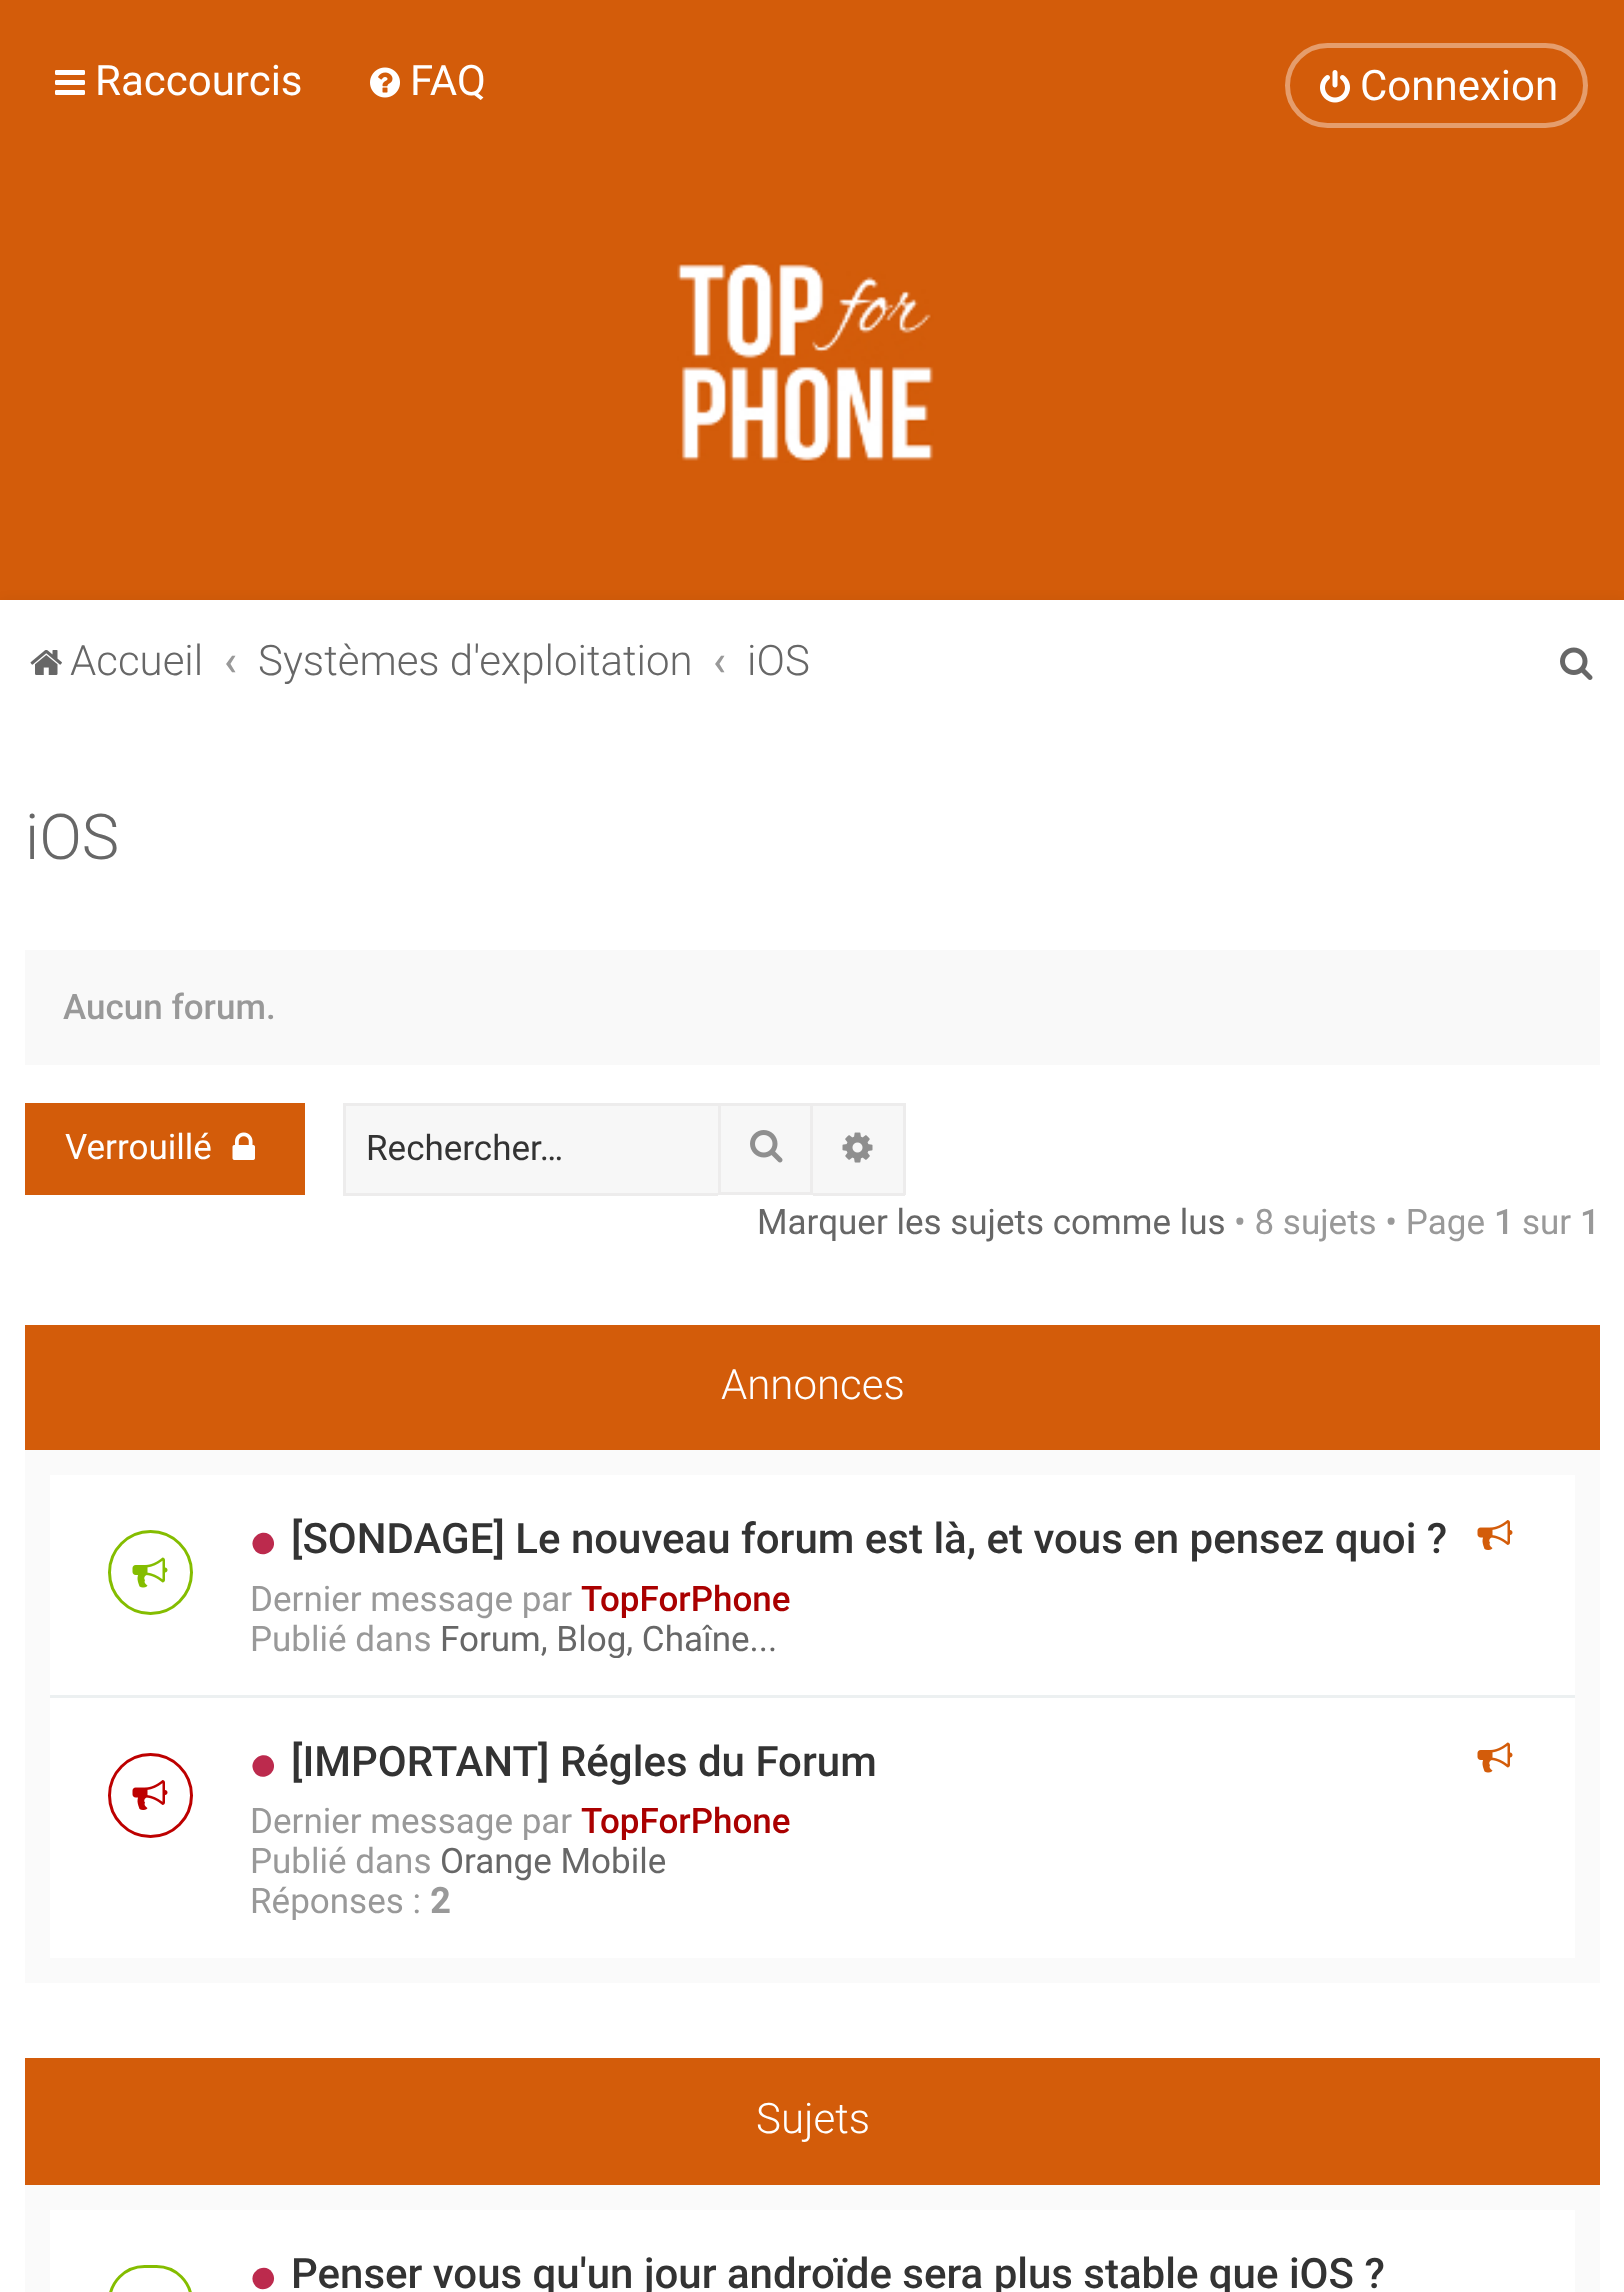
(async () => {
  const canvas = document.querySelector("canvas");
  canvas.width = 1624;
  canvas.height = 2292;
  const ctx = canvas.getContext("2d");
  ctx.miterLimit = 4;
  ctx.fontKerning = "normal";
  async function loadImage(src) {
    const img = new Image();
    img.src = src;
    await img.decode();
    return img;
  }
  let path;

  ctx.fillStyle = "#d35c0a";
  ctx.fillRect(0, 0, 1624, 2292);
  ctx.drawImage(await loadImage("img/1.png"), 55, 70, 30, 25);
  ctx.drawImage(await loadImage("img/2.png"), 370, 67, 30, 31);
  ctx.beginPath();
  ctx.roundRect(1287.5, 45.5, 298, 80, 40);
  ctx.strokeStyle = "#e59d6c";
  ctx.lineWidth = 5;
  ctx.stroke();
  ctx.drawImage(await loadImage("img/3.png"), 1320, 70, 30, 33);
  ctx.drawImage(await loadImage("img/4.png"), 677, 262, 257, 201);
  ctx.fillStyle = "rgba(0, 0, 0, 0.05)";
  ctx.filter = "blur(6px)";
  ctx.beginPath();
  ctx.rect(0, 600, 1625, 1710);
  ctx.fill();
  ctx.filter = "none";
  ctx.fillStyle = "#ffffff";
  ctx.fillRect(0, 600, 1624, 1692);
  ctx.drawImage(await loadImage("img/5.png"), 30, 650, 32, 25);
  ctx.drawImage(await loadImage("img/6.png"), 1560, 647, 33, 33);
  ctx.fillStyle = "#f9f9f9";
  ctx.fillRect(25, 950, 1575, 115);
  ctx.fillStyle = "#d35c0a";
  ctx.fillRect(25, 1103, 280, 92);
  ctx.drawImage(await loadImage("img/7.png"), 232, 1132, 23, 28);
  for (const [x, y, w, h, color] of [
    [346, 1106, 372, 87, "#f7f7f7"],
    [343, 1103, 375, 3, "#edecec"],
    [343, 1193, 375, 3, "#edecec"],
    [343, 1103, 3, 92, "#edecec"],
  ]) {
    ctx.fillStyle = color;
    ctx.fillRect(x, y, w, h);
  }
  ctx.fillStyle = "#f7f7f7";
  ctx.beginPath();
  ctx.rect(719.5, 1104.5, 92, 89);
  ctx.fill();
  ctx.strokeStyle = "#edecec";
  ctx.lineWidth = 3;
  ctx.stroke();
  ctx.drawImage(await loadImage("img/8.png"), 750, 1130, 33, 33);
  for (const [x, y, w, h, color] of [
    [813, 1106, 90, 87, "#f7f7f7"],
    [813, 1103, 92, 3, "#edecec"],
    [903, 1103, 3, 92, "#edecec"],
    [813, 1193, 92, 3, "#edecec"],
  ]) {
    ctx.fillStyle = color;
    ctx.fillRect(x, y, w, h);
  }
  ctx.drawImage(await loadImage("img/9.png"), 842, 1132, 31, 31);
  for (const [x, y, w, h, color] of [
    [25, 1450, 1575, 533, "#fafafa"],
    [25, 1325, 1575, 125, "#d35c0a"],
    [50, 1475, 1525, 220, "#ffffff"],
    [50, 1695, 1525, 3, "#ecf0f1"],
  ]) {
    ctx.fillStyle = color;
    ctx.fillRect(x, y, w, h);
  }
  ctx.beginPath();
  ctx.arc(150.5, 1572.5, 41, 0, Math.PI * 2);
  ctx.strokeStyle = "#84bd00";
  ctx.stroke();
  ctx.drawImage(await loadImage("img/10.png"), 132, 1557, 36, 31);
  ctx.fillStyle = "#bc2a4d";
  path = new Path2D("M272.5 1538C279.5 1550.5 261 1561 254 1549C247 1537 265.5 1526 272.5 1538Z");
  ctx.fill(path);
  ctx.drawImage(await loadImage("img/11.png"), 1477, 1520, 36, 30);
  ctx.fillStyle = "#ffffff";
  ctx.fillRect(50, 1698, 1525, 260);
  ctx.beginPath();
  ctx.arc(150.5, 1795.5, 41, 0, Math.PI * 2);
  ctx.strokeStyle = "#bd0000";
  ctx.stroke();
  ctx.drawImage(await loadImage("img/12.png"), 132, 1780, 36, 30);
  ctx.fillStyle = "#bc2a4d";
  path = new Path2D("M272.5 1760.5C279.5 1773 261 1783.5 254 1771.5C247 1759.5 265.5 1748.5 272.5 1760.5Z");
  ctx.fill(path);
  ctx.drawImage(await loadImage("img/13.png"), 1477, 1742, 36, 31);
  for (const [x, y, w, h, color] of [
    [25, 2185, 1575, 107, "#fafafa"],
    [25, 2058, 1575, 127, "#d35c0a"],
    [50, 2210, 1525, 82, "#ffffff"],
  ]) {
    ctx.fillStyle = color;
    ctx.fillRect(x, y, w, h);
  }
  ctx.beginPath();
  ctx.roundRect(109.5, 2266.5, 82, 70, 41);
  ctx.strokeStyle = "#84bd00";
  ctx.stroke();
  ctx.fillStyle = "#bc2a4d";
  path = new Path2D("M272.5 2273C279.5 2285.5 261 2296 254 2284C247 2272 265.5 2261 272.5 2273Z");
  ctx.fill(path);
  ctx.font = "42px Roboto";
  ctx.fillStyle = "#ffffff";
  for (const [text, x, y] of [
    ["Raccourcis", 95, 95],
    ["FAQ", 410, 95],
    ["Connexion", 1360, 100],
  ]) {
    ctx.fillText(text, x, y);
  }
  ctx.font = "300 42px Roboto";
  ctx.fillStyle = "#676767";
  ctx.fillText("Accueil", 70, 675);
  ctx.font = "500 42px Roboto";
  ctx.fillStyle = "#999999";
  ctx.fillText("‹", 224, 675);
  ctx.font = "300 42px Roboto";
  ctx.fillStyle = "#676767";
  ctx.fillText("Systèmes d'exploitation", 258, 675);
  ctx.font = "500 42px Roboto";
  ctx.fillStyle = "#999999";
  ctx.fillText("‹", 713, 675);
  ctx.font = "300 42px Roboto";
  ctx.fillStyle = "#676767";
  ctx.fillText("iOS", 747, 675);
  ctx.font = "300 63px Roboto";
  ctx.fillText("iOS", 25, 859);
  ctx.font = "500 35px Roboto";
  ctx.fillStyle = "#999999";
  ctx.fillText("Aucun forum.", 63, 1019);
  ctx.font = "35px Roboto";
  ctx.fillStyle = "#ffffff";
  ctx.fillText("Verrouillé", 65, 1159);
  ctx.fillStyle = "#333333";
  ctx.fillText("Rechercher…", 366, 1160);
  ctx.fillStyle = "#676767";
  ctx.fillText("Marquer les sujets comme lus", 757, 1234);
  ctx.fillStyle = "#999999";
  ctx.fillText("• 8 sujets • Page", 1234, 1234);
  ctx.font = "500 35px Roboto";
  ctx.fillText("1", 1494, 1234);
  ctx.font = "35px Roboto";
  ctx.fillText("sur", 1522, 1234);
  ctx.font = "500 35px Roboto";
  ctx.fillText("1", 1580, 1234);
  ctx.font = "300 42px Roboto";
  ctx.fillStyle = "#ffffff";
  ctx.fillText("Annonces", 721, 1399);
  ctx.font = "500 42px Roboto";
  ctx.fillStyle = "#333333";
  ctx.fillText("[SONDAGE] Le nouveau forum est là, et vous en pensez quoi ?", 291, 1553);
  ctx.font = "35px Roboto";
  ctx.fillStyle = "#999999";
  ctx.fillText("Dernier message par", 250, 1611);
  ctx.font = "500 35px Roboto";
  ctx.fillStyle = "#aa0000";
  ctx.fillText("TopForPhone", 581, 1611);
  ctx.font = "35px Roboto";
  ctx.fillStyle = "#999999";
  ctx.fillText("Publié dans", 250, 1651);
  ctx.save();
  ctx.beginPath();
  ctx.rect(80, 1513, 1465, 145);
  ctx.clip();
  ctx.fillStyle = "#676767";
  ctx.fillText("Forum, Blog, Chaîne...", 440, 1651);
  ctx.restore();
  ctx.font = "500 42px Roboto";
  ctx.fillStyle = "#333333";
  ctx.fillText("[IMPORTANT] Régles du Forum", 291, 1776);
  ctx.font = "35px Roboto";
  ctx.fillStyle = "#999999";
  ctx.fillText("Dernier message par", 250, 1833);
  ctx.font = "500 35px Roboto";
  ctx.fillStyle = "#aa0000";
  ctx.fillText("TopForPhone", 581, 1833);
  ctx.font = "35px Roboto";
  ctx.fillStyle = "#999999";
  ctx.fillText("Publié dans", 250, 1873);
  ctx.fillStyle = "#676767";
  ctx.fillText("Orange Mobile", 440, 1873);
  ctx.save();
  ctx.beginPath();
  ctx.rect(80, 1735, 1465, 185);
  ctx.clip();
  ctx.fillStyle = "#999999";
  ctx.fillText("Réponses :", 250, 1913);
  ctx.restore();
  ctx.font = "bold 35px Roboto";
  ctx.fillStyle = "#999999";
  ctx.fillText("2", 430, 1913);
  ctx.font = "300 42px Roboto";
  ctx.fillStyle = "#ffffff";
  ctx.fillText("Sujets", 756, 2133);
  ctx.font = "500 42px Roboto";
  ctx.fillStyle = "#333333";
  ctx.fillText("Penser vous qu'un jour androïde sera plus stable que iOS ?", 291, 2288);
})();
